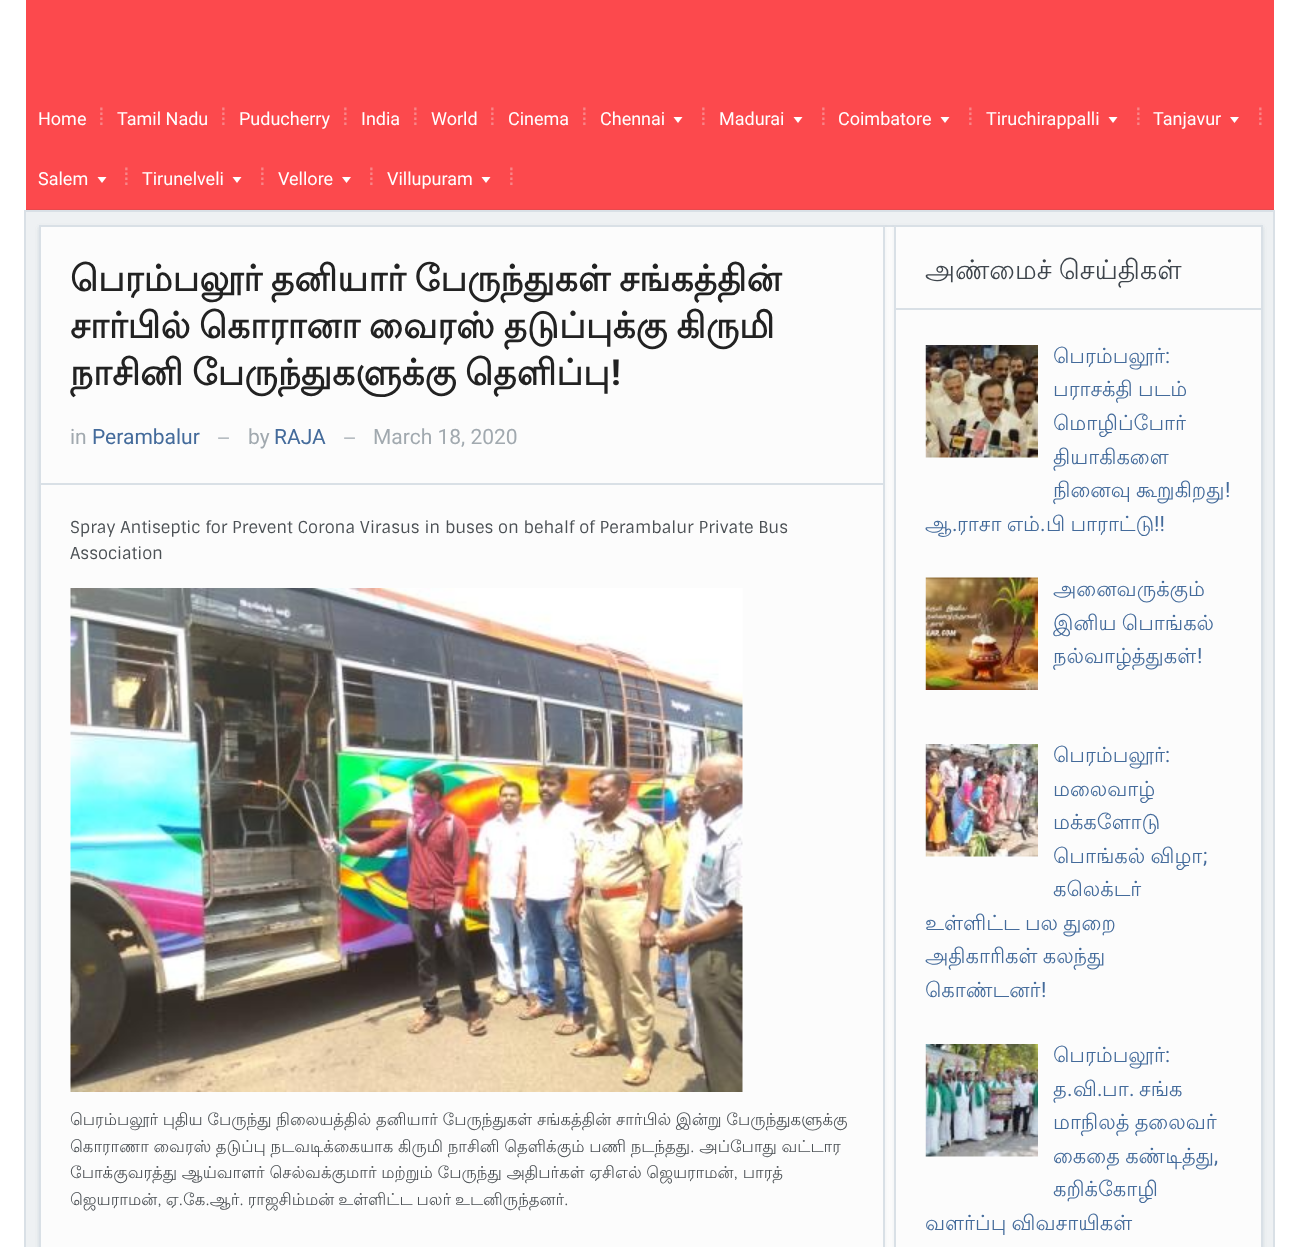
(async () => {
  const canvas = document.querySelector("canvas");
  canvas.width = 1299;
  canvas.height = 1247;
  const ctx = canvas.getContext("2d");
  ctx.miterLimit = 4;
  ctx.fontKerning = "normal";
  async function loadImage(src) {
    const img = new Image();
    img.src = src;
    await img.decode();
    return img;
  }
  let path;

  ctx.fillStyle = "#ffffff";
  ctx.fillRect(0, 0, 1299, 1247);
  ctx.fillStyle = "#fc494d";
  ctx.fillRect(26, 0, 1248, 209);
  ctx.fillStyle = "#e9484c";
  ctx.fillRect(26, 209, 1248, 1);
  ctx.fillStyle = "#ffffff";
  path = new Path2D("M673.5 117H682.5L678 123Z");
  ctx.fill(path);
  path = new Path2D("M793.5 117H802.5L798 123Z");
  ctx.fill(path);
  path = new Path2D("M940.5 117H949.5L945 123Z");
  ctx.fill(path);
  path = new Path2D("M1108.5 117H1117.5L1113 123Z");
  ctx.fill(path);
  path = new Path2D("M1230 117H1239L1234.5 123Z");
  ctx.fill(path);
  path = new Path2D("M97.5 177H106.5L102 183Z");
  ctx.fill(path);
  path = new Path2D("M232.5 177H241.5L237 183Z");
  ctx.fill(path);
  path = new Path2D("M342 177H351L346.5 183Z");
  ctx.fill(path);
  path = new Path2D("M481.5 177H490.5L486 183Z");
  ctx.fill(path);
  ctx.fillStyle = "#eef1f3";
  ctx.beginPath();
  ctx.rect(25, 211, 1249, 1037);
  ctx.fill();
  ctx.strokeStyle = "#d9e0e6";
  ctx.lineWidth = 2;
  ctx.stroke();
  ctx.fillStyle = "rgba(74, 95, 116, 0.08)";
  ctx.filter = "blur(2px)";
  ctx.beginPath();
  ctx.rect(39, 227, 1224, 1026);
  ctx.fill();
  ctx.filter = "none";
  ctx.fillStyle = "#fcfcfc";
  ctx.fillRect(885, 227, 9, 1020);
  ctx.strokeRect(40, 226, 1222, 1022);
  ctx.fillStyle = "rgba(74, 95, 116, 0.08)";
  ctx.filter = "blur(2px)";
  ctx.beginPath();
  ctx.rect(39, 227, 846, 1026);
  ctx.fill();
  ctx.filter = "none";
  ctx.fillStyle = "#fcfcfc";
  ctx.beginPath();
  ctx.rect(40, 226, 844, 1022);
  ctx.fill();
  ctx.stroke();
  ctx.fillStyle = "#d9e0e6";
  ctx.fillRect(41, 483, 843, 2);
  ctx.drawImage(await loadImage("img/1.png"), 70, 588, 673, 504);
  ctx.fillStyle = "rgba(74, 95, 116, 0.08)";
  ctx.filter = "blur(2px)";
  ctx.beginPath();
  ctx.rect(894, 227, 369, 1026);
  ctx.fill();
  ctx.filter = "none";
  ctx.fillStyle = "#fcfcfc";
  ctx.beginPath();
  ctx.rect(895, 226, 367, 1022);
  ctx.fill();
  ctx.stroke();
  ctx.fillStyle = "#d9e0e6";
  ctx.fillRect(896, 308, 366, 2);
  ctx.drawImage(await loadImage("img/2.png"), 925, 345, 113, 113);
  ctx.drawImage(await loadImage("img/3.png"), 925, 577, 113, 113);
  ctx.drawImage(await loadImage("img/4.png"), 925, 744, 113, 113);
  ctx.drawImage(await loadImage("img/5.png"), 925, 1044, 113, 113);
  ctx.font = "18px Roboto";
  ctx.fillStyle = "#ffffff";
  ctx.fillText("Home", 38, 125);
  ctx.font = "24px Liberation Sans";
  ctx.fillStyle = "#f88688";
  ctx.fillText("⁞", 98, 125);
  ctx.font = "18px Roboto";
  ctx.fillStyle = "#ffffff";
  ctx.fillText("Tamil Nadu", 117, 125);
  ctx.font = "24px Liberation Sans";
  ctx.fillStyle = "#f88688";
  ctx.fillText("⁞", 220, 125);
  ctx.font = "18px Roboto";
  ctx.fillStyle = "#ffffff";
  ctx.fillText("Puducherry", 239, 125);
  ctx.font = "24px Liberation Sans";
  ctx.fillStyle = "#f88688";
  ctx.fillText("⁞", 342, 125);
  ctx.font = "18px Roboto";
  ctx.fillStyle = "#ffffff";
  ctx.fillText("India", 361, 125);
  ctx.font = "24px Liberation Sans";
  ctx.fillStyle = "#f88688";
  ctx.fillText("⁞", 412, 125);
  ctx.font = "18px Roboto";
  ctx.fillStyle = "#ffffff";
  ctx.fillText("World", 431, 125);
  ctx.font = "24px Liberation Sans";
  ctx.fillStyle = "#f88688";
  ctx.fillText("⁞", 489, 125);
  ctx.font = "18px Roboto";
  ctx.fillStyle = "#ffffff";
  ctx.fillText("Cinema", 508, 125);
  ctx.font = "24px Liberation Sans";
  ctx.fillStyle = "#f88688";
  ctx.fillText("⁞", 581, 125);
  ctx.font = "18px Roboto";
  ctx.fillStyle = "#ffffff";
  ctx.fillText("Chennai", 600, 125);
  ctx.font = "24px Liberation Sans";
  ctx.fillStyle = "#f88688";
  ctx.fillText("⁞", 700, 125);
  ctx.font = "18px Roboto";
  ctx.fillStyle = "#ffffff";
  ctx.fillText("Madurai", 719, 125);
  ctx.font = "24px Liberation Sans";
  ctx.fillStyle = "#f88688";
  ctx.fillText("⁞", 820, 125);
  ctx.font = "18px Roboto";
  ctx.fillStyle = "#ffffff";
  ctx.fillText("Coimbatore", 838, 125);
  ctx.font = "24px Liberation Sans";
  ctx.fillStyle = "#f88688";
  ctx.fillText("⁞", 967, 125);
  ctx.font = "18px Roboto";
  ctx.fillStyle = "#ffffff";
  ctx.fillText("Tiruchirappalli", 986, 125);
  ctx.font = "24px Liberation Sans";
  ctx.fillStyle = "#f88688";
  ctx.fillText("⁞", 1135, 125);
  ctx.font = "18px Roboto";
  ctx.fillStyle = "#ffffff";
  ctx.fillText("Tanjavur", 1153, 125);
  ctx.font = "24px Liberation Sans";
  ctx.fillStyle = "#f88688";
  ctx.fillText("⁞", 1257, 125);
  ctx.font = "18px Roboto";
  ctx.fillStyle = "#ffffff";
  ctx.fillText("Salem", 38, 185);
  ctx.font = "24px Liberation Sans";
  ctx.fillStyle = "#f88688";
  ctx.fillText("⁞", 123, 185);
  ctx.font = "18px Roboto";
  ctx.fillStyle = "#ffffff";
  ctx.fillText("Tirunelveli", 142, 185);
  ctx.font = "24px Liberation Sans";
  ctx.fillStyle = "#f88688";
  ctx.fillText("⁞", 259, 185);
  ctx.font = "18px Roboto";
  ctx.fillStyle = "#ffffff";
  ctx.fillText("Vellore", 278, 185);
  ctx.font = "24px Liberation Sans";
  ctx.fillStyle = "#f88688";
  ctx.fillText("⁞", 368, 185);
  ctx.font = "18px Roboto";
  ctx.fillStyle = "#ffffff";
  ctx.fillText("Villupuram", 387, 185);
  ctx.font = "24px Liberation Sans";
  ctx.fillStyle = "#f88688";
  ctx.fillText("⁞", 508, 185);
  ctx.wordSpacing = "-2px";
  ctx.font = "bold 36px Lohit Tamil";
  ctx.fillStyle = "#222222";
  for (const [text, x, y] of [
    ["பெரம்பலூர் தனியார் பேருந்துகள் சங்கத்தின்", 70, 291],
    ["சார்பில் கொரானா வைரஸ் தடுப்புக்கு கிருமி", 70, 338],
    ["நாசினி பேருந்துகளுக்கு தெளிப்பு", 70, 385],
  ]) {
    ctx.fillText(text, x, y);
  }
  ctx.wordSpacing = "0px";
  ctx.font = "bold 36px Roboto";
  ctx.fillText("!", 611, 385);
  ctx.font = "21px Roboto";
  ctx.fillStyle = "#a1a9af";
  ctx.fillText("in", 70, 444);
  ctx.fillStyle = "#446b9b";
  ctx.fillText("Perambalur", 92, 444);
  ctx.font = "16.5px Roboto";
  ctx.fillStyle = "#a1a9af";
  ctx.fillText("—", 217, 444);
  ctx.font = "21px Roboto";
  ctx.fillText("by", 248, 444);
  ctx.fillStyle = "#446b9b";
  ctx.fillText("RAJA", 274, 444);
  ctx.font = "16.5px Roboto";
  ctx.fillStyle = "#a1a9af";
  ctx.fillText("—", 343, 444);
  ctx.font = "21px Roboto";
  ctx.fillText("March 18, 2020", 373, 444);
  ctx.font = "16.5px Sintony";
  ctx.fillStyle = "#4c5155";
  ctx.fillText("Spray Antiseptic for Prevent Corona Virasus in buses on behalf of Perambalur Private Bus", 70, 533);
  ctx.fillText("Association", 70, 559);
  ctx.wordSpacing = "-0.25px";
  ctx.font = "16.5px Lohit Tamil";
  for (const [text, x, y] of [
    ["பெரம்பலூர் புதிய பேருந்து நிலையத்தில் தனியார் பேருந்துகள் சங்கத்தின் சார்பில் இன்று பேருந்துகளுக்கு", 70, 1125],
    ["கொராணா வைரஸ் தடுப்பு நடவடிக்கையாக கிருமி நாசினி தெளிக்கும் பணி நடந்தது. அப்போது வட்டார", 70, 1152],
    ["போக்குவரத்து ஆய்வாளர் செல்வக்குமார் மற்றும் பேருந்து அதிபர்கள் ஏசிஎல் ஜெயராமன், பாரத்", 70, 1178],
  ]) {
    ctx.fillText(text, x, y);
  }
  ctx.wordSpacing = "-1px";
  ctx.fillText("ஜெயராமன், ஏ.கே.ஆர். ராஜசிம்மன் உள்ளிட்ட பலர் உடனிருந்தனர்.", 70, 1205);
  ctx.font = "27px Lohit Tamil";
  ctx.fillStyle = "#3e454c";
  ctx.fillText("அண்மைச் செய்திகள்", 925, 279);
  ctx.wordSpacing = "0px";
  ctx.font = "21px Lohit Tamil";
  ctx.fillStyle = "#446b9b";
  ctx.fillText("பெரம்பலூர்", 1053, 363);
  ctx.font = "21px Roboto";
  ctx.fillText(":", 1165, 363);
  ctx.wordSpacing = "-1px";
  ctx.font = "21px Lohit Tamil";
  ctx.fillText("பராசக்தி படம்", 1053, 396);
  ctx.wordSpacing = "0px";
  ctx.fillText("மொழிப்போர்", 1053, 430);
  ctx.fillText("தியாகிகளை", 1053, 464);
  ctx.wordSpacing = "-1px";
  ctx.fillText("நினைவு கூறுகிறது", 1053, 497);
  ctx.wordSpacing = "0px";
  ctx.font = "21px Roboto";
  ctx.fillText("!", 1225, 497);
  ctx.font = "21px Lohit Tamil";
  ctx.fillText("ஆ", 925, 531);
  ctx.font = "21px Roboto";
  ctx.fillText(".", 952, 531);
  ctx.wordSpacing = "-1px";
  ctx.font = "21px Lohit Tamil";
  ctx.fillText("ராசா எம்", 957, 531);
  ctx.wordSpacing = "0px";
  ctx.font = "21px Roboto";
  ctx.fillText(".", 1040, 531);
  ctx.wordSpacing = "-1px";
  ctx.font = "21px Lohit Tamil";
  ctx.fillText("பி பாராட்டு", 1046, 531);
  ctx.wordSpacing = "0px";
  ctx.font = "21px Roboto";
  ctx.fillText("!!", 1154, 531);
  ctx.font = "21px Lohit Tamil";
  ctx.fillText("அனைவருக்கும்", 1053, 596);
  ctx.wordSpacing = "-1px";
  ctx.fillText("இனிய பொங்கல்", 1053, 630);
  ctx.wordSpacing = "0px";
  ctx.fillText("நல்வாழ்த்துகள்", 1053, 663);
  ctx.font = "21px Roboto";
  ctx.fillText("!", 1197, 663);
  ctx.font = "21px Lohit Tamil";
  ctx.fillText("பெரம்பலூர்", 1053, 762);
  ctx.font = "21px Roboto";
  ctx.fillText(":", 1165, 762);
  ctx.font = "21px Lohit Tamil";
  ctx.fillText("மலைவாழ்", 1053, 796);
  ctx.fillText("மக்களோடு", 1053, 829);
  ctx.wordSpacing = "-1px";
  ctx.fillText("பொங்கல் விழா", 1053, 863);
  ctx.wordSpacing = "0px";
  ctx.font = "21px Roboto";
  ctx.fillText(";", 1203, 863);
  ctx.font = "21px Lohit Tamil";
  ctx.fillText("கலெக்டர்", 1053, 896);
  ctx.wordSpacing = "-1px";
  ctx.fillText("உள்ளிட்ட பல துறை", 925, 930);
  ctx.fillText("அதிகாரிகள் கலந்து", 925, 963);
  ctx.wordSpacing = "0px";
  ctx.fillText("கொண்டனர்", 925, 997);
  ctx.font = "21px Roboto";
  ctx.fillText("!", 1041, 997);
  ctx.font = "21px Lohit Tamil";
  ctx.fillText("பெரம்பலூர்", 1053, 1062);
  ctx.font = "21px Roboto";
  ctx.fillText(":", 1165, 1062);
  ctx.font = "21px Lohit Tamil";
  ctx.fillText("த", 1053, 1096);
  ctx.font = "21px Roboto";
  ctx.fillText(".", 1067, 1096);
  ctx.font = "21px Lohit Tamil";
  ctx.fillText("வி", 1073, 1096);
  ctx.font = "21px Roboto";
  ctx.fillText(".", 1097, 1096);
  ctx.font = "21px Lohit Tamil";
  ctx.fillText("பா", 1102, 1096);
  ctx.font = "21px Roboto";
  ctx.fillText(".", 1129, 1096);
  ctx.font = "21px Lohit Tamil";
  ctx.fillText("சங்க", 1139, 1096);
  ctx.wordSpacing = "-1px";
  ctx.fillText("மாநிலத் தலைவர்", 1053, 1129);
  ctx.fillText("கைதை கண்டித்து", 1053, 1163);
  ctx.wordSpacing = "0px";
  ctx.font = "21px Roboto";
  ctx.fillText(",", 1214, 1163);
  ctx.font = "21px Lohit Tamil";
  ctx.fillText("கறிக்கோழி", 1053, 1196);
  ctx.wordSpacing = "-1px";
  ctx.fillText("வளர்ப்பு விவசாயிகள்", 925, 1230);
})();
